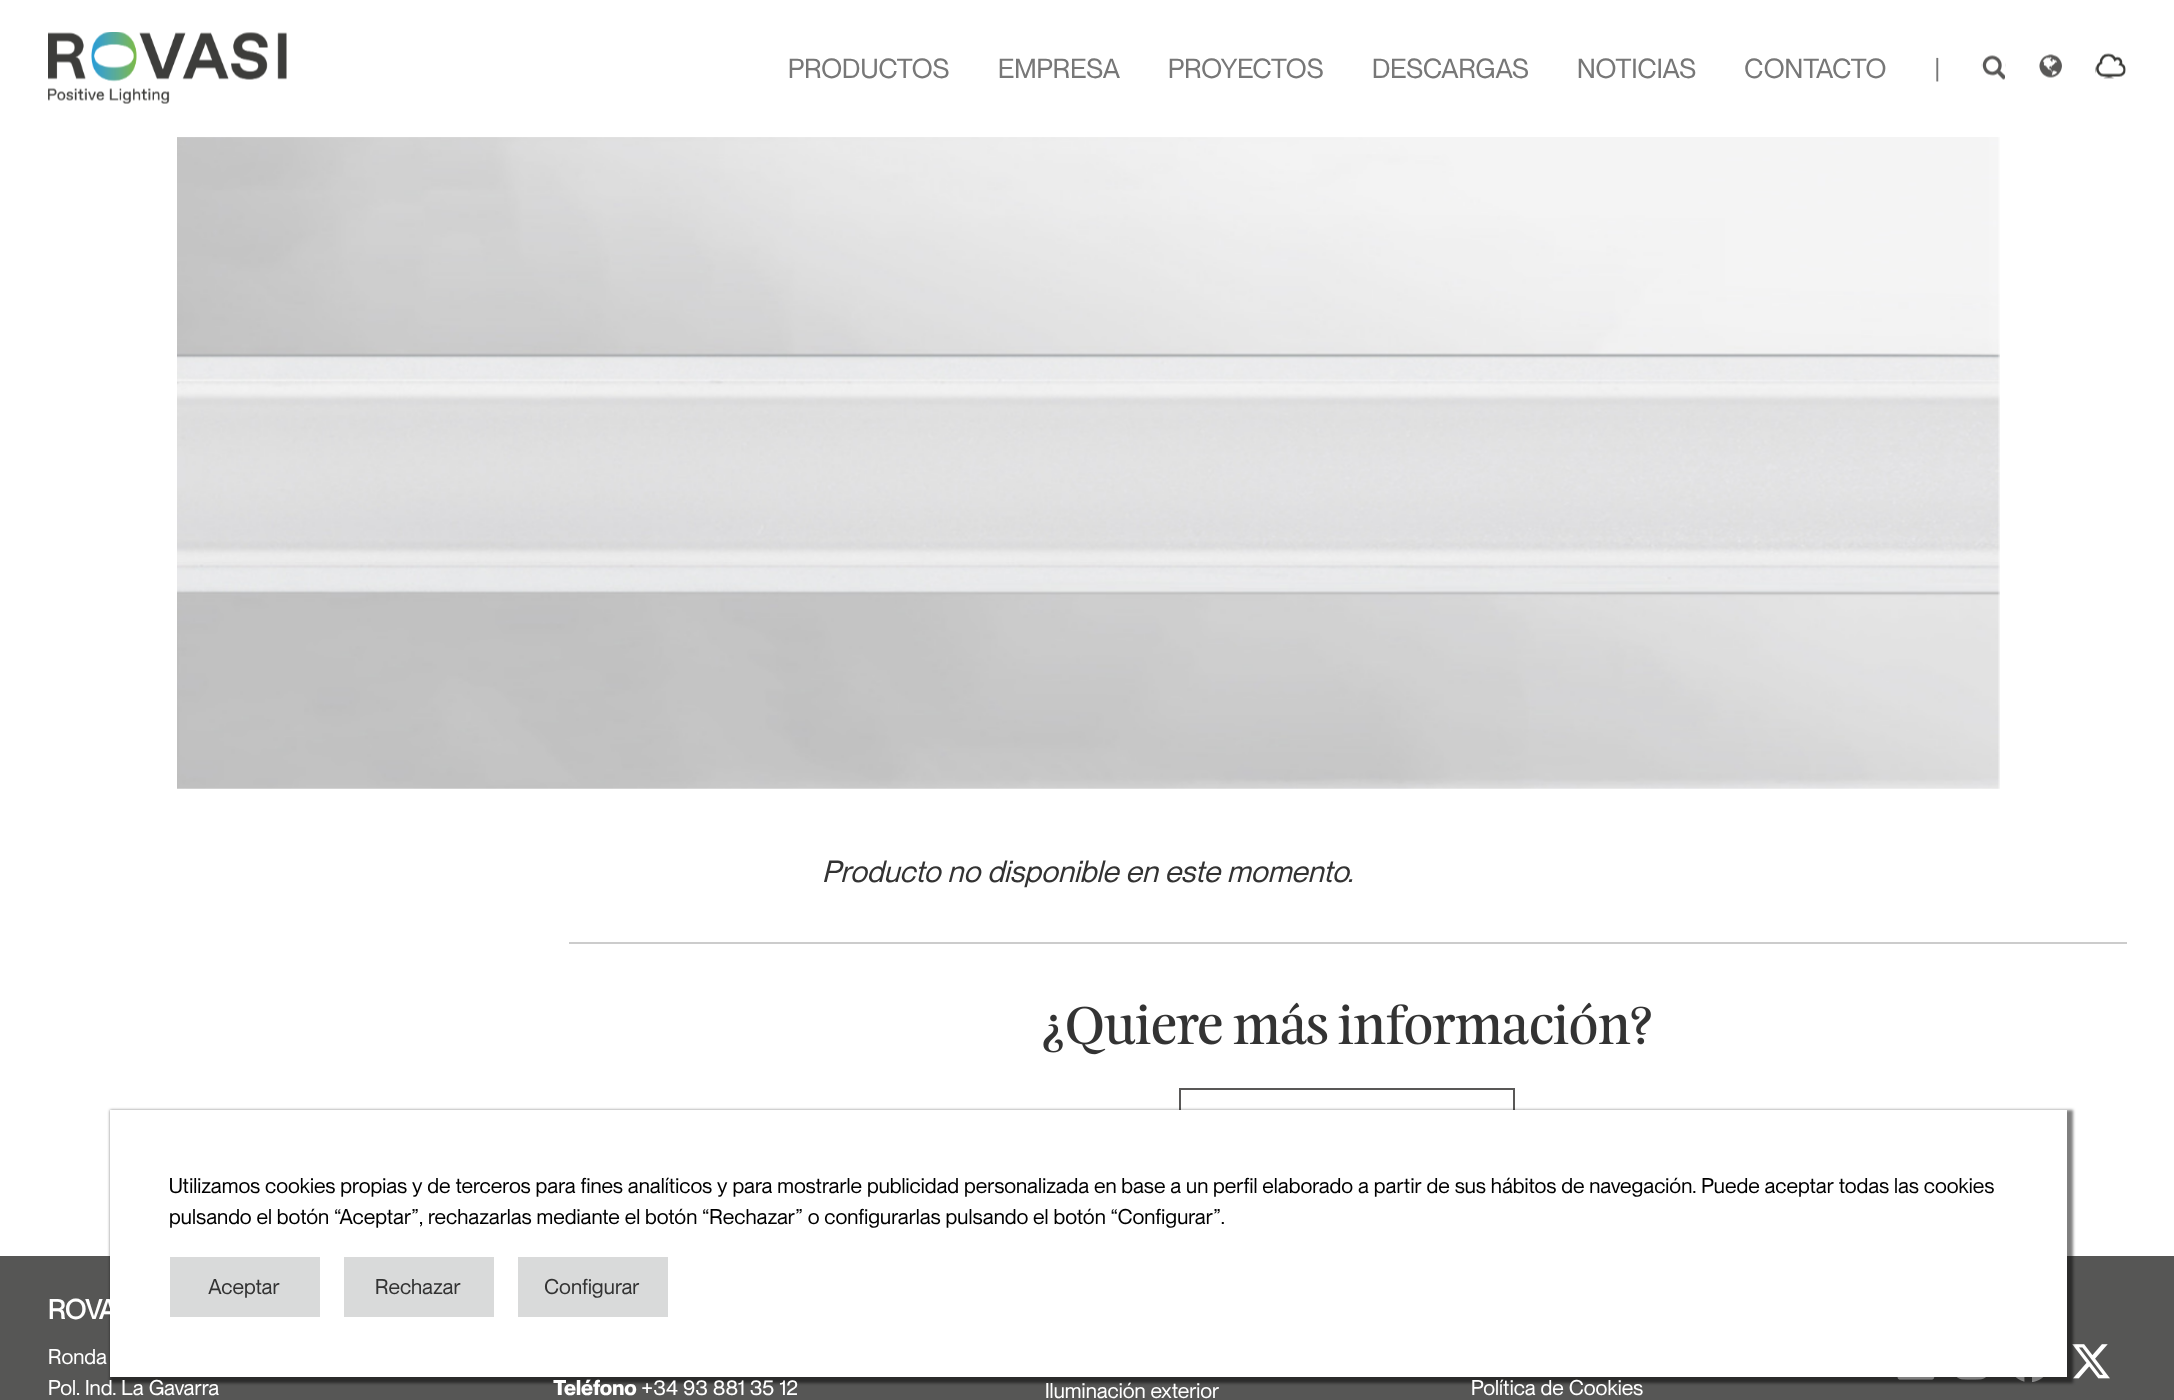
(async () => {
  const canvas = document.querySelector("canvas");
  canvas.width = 2174;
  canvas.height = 1400;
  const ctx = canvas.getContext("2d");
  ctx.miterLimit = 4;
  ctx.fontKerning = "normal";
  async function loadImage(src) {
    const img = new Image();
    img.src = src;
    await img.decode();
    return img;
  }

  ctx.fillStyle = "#ffffff";
  ctx.fillRect(0, 0, 2174, 1400);
  ctx.drawImage(await loadImage("img/1.png"), 48, 32, 239, 72);
  ctx.drawImage(await loadImage("img/2.png"), 1981, 55, 25, 25);
  ctx.drawImage(await loadImage("img/3.png"), 2039, 54, 23, 24);
  ctx.drawImage(await loadImage("img/4.png"), 2095, 53, 31, 26);
  ctx.drawImage(await loadImage("img/5.png"), 177, 137, 1823, 652);
  ctx.fillStyle = "#cccccc";
  ctx.fillRect(569, 942, 1558, 2);
  ctx.drawImage(await loadImage("img/6.png"), 1043, 1002, 608, 53);
  ctx.strokeStyle = "#595857";
  ctx.lineWidth = 2;
  ctx.strokeRect(1180, 1089, 334, 64);
  ctx.fillStyle = "#565655";
  ctx.fillRect(0, 1256, 2174, 144);
  ctx.drawImage(await loadImage("img/7.png"), 1897, 1377, 38, 3);
  ctx.drawImage(await loadImage("img/8.png"), 1956, 1377, 30, 3);
  ctx.drawImage(await loadImage("img/9.png"), 2015, 1377, 29, 5);
  ctx.drawImage(await loadImage("img/10.png"), 2072, 1344, 38, 35);
  ctx.fillStyle = "rgba(0, 0, 0, 0.5)";
  ctx.filter = "blur(1.5px)";
  ctx.beginPath();
  ctx.rect(110, 1110, 1963, 273);
  ctx.fill();
  ctx.filter = "none";
  for (const [x, y, w, h, color] of [
    [110, 1110, 1957, 267, "#ffffff"],
    [170, 1257, 150, 60, "#d9dada"],
    [344, 1257, 150, 60, "#d9dada"],
    [518, 1257, 150, 60, "#d9dada"],
  ]) {
    ctx.fillStyle = color;
    ctx.fillRect(x, y, w, h);
  }
  ctx.font = "27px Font";
  ctx.fillStyle = "#777777";
  for (const [text, x, y] of [
    ["PRODUCTOS", 788, 78],
    ["EMPRESA", 998, 78],
    ["PROYECTOS", 1168, 78],
    ["DESCARGAS", 1372, 78],
    ["NOTICIAS", 1577, 78],
    ["CONTACTO", 1744, 78],
    ["|", 1934, 78],
  ]) {
    ctx.fillText(text, x, y);
  }
  ctx.font = "italic 30px Font";
  ctx.fillStyle = "#333333";
  ctx.fillText("Producto no disponible en este momento.", 822, 882);
  ctx.font = "21px Font";
  ctx.fillStyle = "#000000";
  ctx.fillText("Utilizamos cookies propias y de terceros para fines analíticos y para mostrarle publicidad personalizada en base a un perfil elaborado a partir de sus hábitos de navegación. Puede aceptar todas las cookies", 169, 1193);
  ctx.fillText("pulsando el botón “Aceptar”, rechazarlas mediante el botón “Rechazar” o configurarlas pulsando el botón “Configurar”.", 169, 1224);
  ctx.fillStyle = "#333333";
  for (const [text, x, y] of [
    ["Aceptar", 208, 1294],
    ["Rechazar", 375, 1294],
    ["Configurar", 544, 1294],
  ]) {
    ctx.fillText(text, x, y);
  }
  ctx.font = "bold 27px Font";
  ctx.fillStyle = "#ffffff";
  ctx.fillText("ROVA", 48, 1319);
  ctx.font = "21px Font";
  ctx.fillText("Ronda", 48, 1364);
  ctx.fillText("Pol. Ind. La Gavarra", 48, 1395);
  ctx.font = "bold 21px 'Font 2'";
  ctx.fillText("Teléfono", 553, 1395);
  ctx.font = "21px Font";
  for (const [text, x, y] of [
    ["+34 93 881 35 12", 641, 1395],
    ["Iluminación exterior", 1045, 1398],
    ["Política de Cookies", 1471, 1395],
  ]) {
    ctx.fillText(text, x, y);
  }
})();
